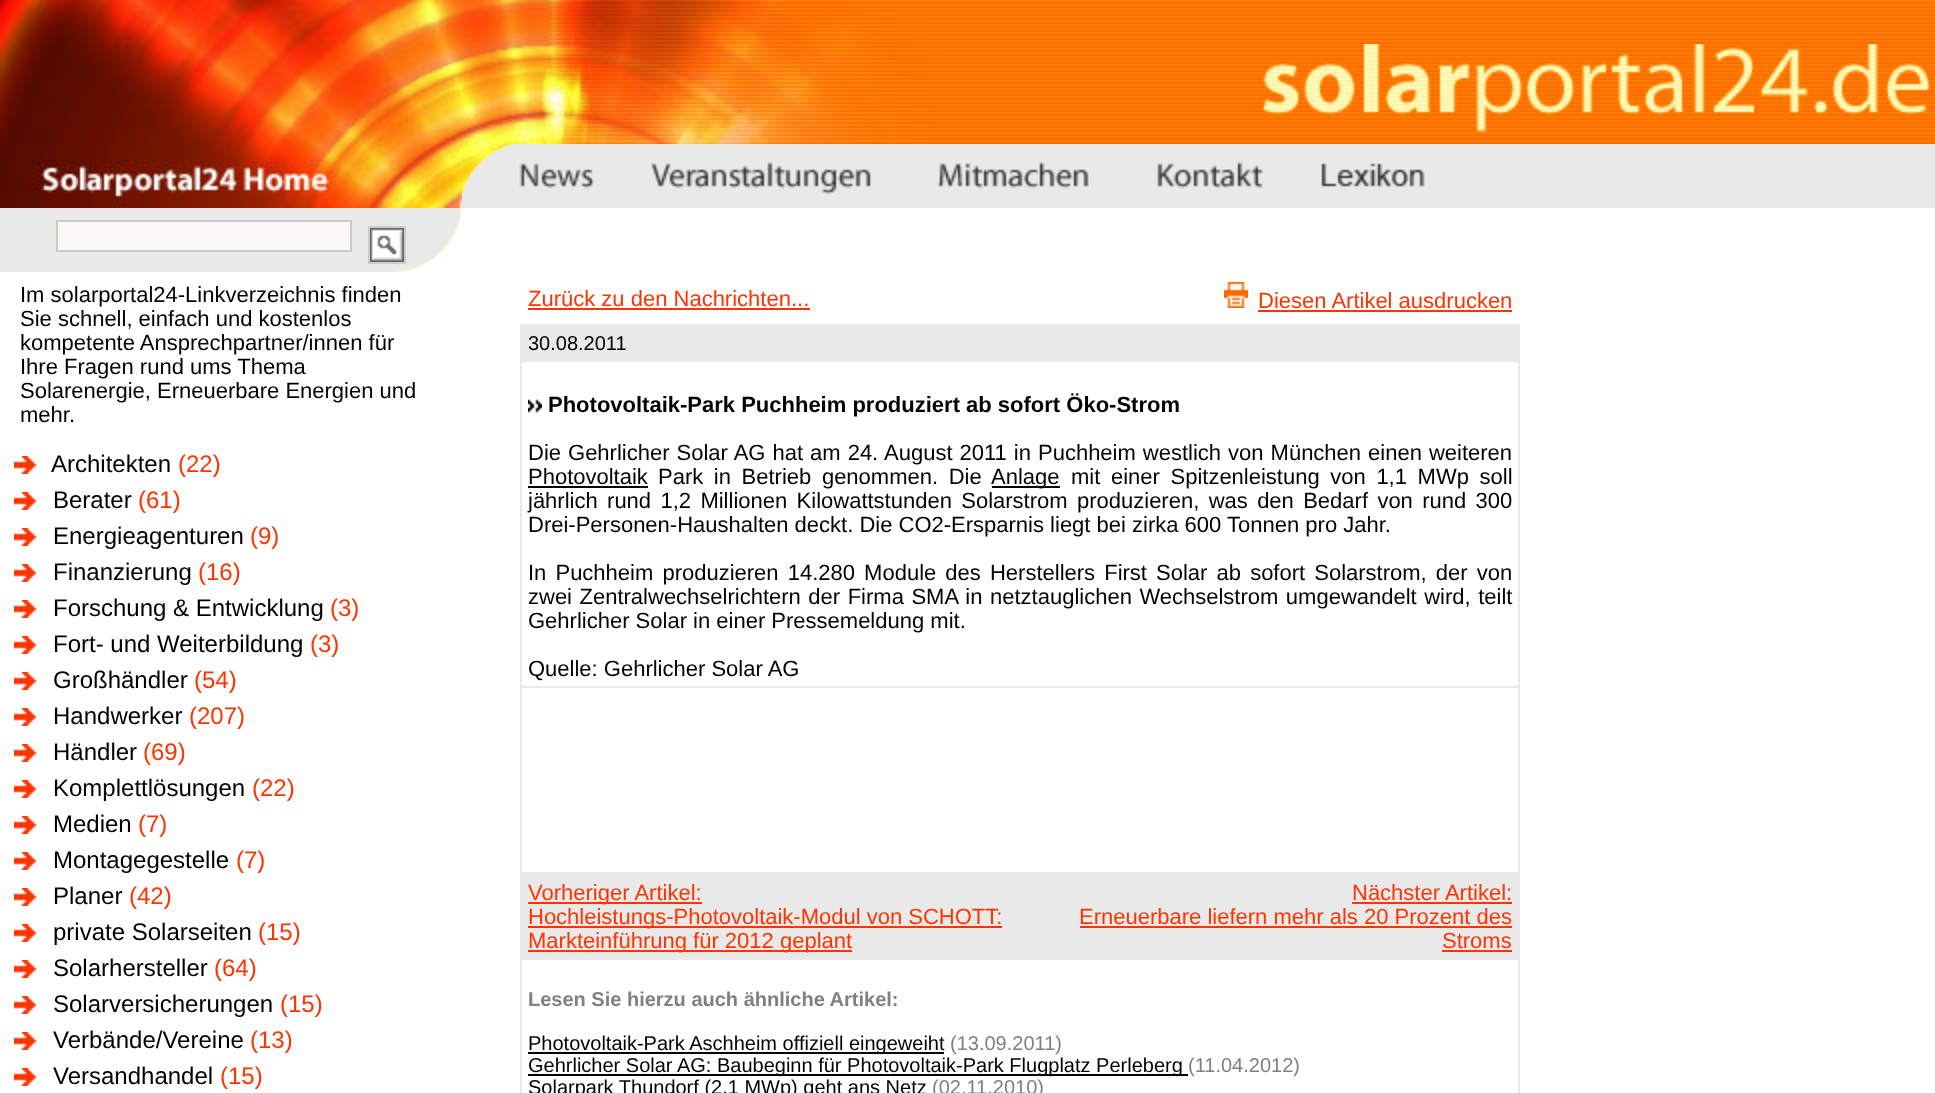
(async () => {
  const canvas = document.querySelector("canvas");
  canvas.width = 1935;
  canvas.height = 1093;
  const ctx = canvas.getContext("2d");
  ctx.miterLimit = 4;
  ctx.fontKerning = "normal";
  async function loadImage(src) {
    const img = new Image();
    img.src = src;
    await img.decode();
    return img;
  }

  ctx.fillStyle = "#ffffff";
  ctx.fillRect(0, 0, 1935, 1093);
  ctx.drawImage(await loadImage("img/1.png"), 0, 0, 1935, 144);
  ctx.drawImage(await loadImage("img/2.png"), 1262, 44, 668, 88);
  ctx.drawImage(await loadImage("img/3.png"), 0, 144, 462, 64);
  ctx.drawImage(await loadImage("img/4.png"), 462, 144, 1473, 64);
  ctx.drawImage(await loadImage("img/5.png"), 519, 163, 76, 26);
  ctx.drawImage(await loadImage("img/6.png"), 651, 161, 220, 34);
  ctx.drawImage(await loadImage("img/7.png"), 937, 161, 152, 28);
  ctx.drawImage(await loadImage("img/8.png"), 1157, 161, 106, 28);
  ctx.drawImage(await loadImage("img/9.png"), 1321, 163, 104, 24);
  ctx.drawImage(await loadImage("img/10.png"), 0, 208, 462, 64);
  ctx.fillStyle = "#f9f8f5";
  ctx.beginPath();
  ctx.rect(57, 221, 294, 30);
  ctx.fill();
  ctx.strokeStyle = "#cccccc";
  ctx.lineWidth = 2;
  ctx.stroke();
  ctx.strokeRect(369, 227, 36, 36);
  ctx.drawImage(await loadImage("img/11.png"), 370, 228, 34, 34);
  ctx.drawImage(await loadImage("img/12.png"), 14, 456, 22, 18);
  ctx.drawImage(await loadImage("img/12.png"), 14, 492, 22, 18);
  ctx.drawImage(await loadImage("img/12.png"), 14, 528, 22, 18);
  ctx.drawImage(await loadImage("img/12.png"), 14, 564, 22, 18);
  ctx.drawImage(await loadImage("img/12.png"), 14, 600, 22, 18);
  ctx.drawImage(await loadImage("img/12.png"), 14, 636, 22, 18);
  ctx.drawImage(await loadImage("img/12.png"), 14, 672, 22, 18);
  ctx.drawImage(await loadImage("img/12.png"), 14, 708, 22, 18);
  ctx.drawImage(await loadImage("img/12.png"), 14, 744, 22, 18);
  ctx.drawImage(await loadImage("img/12.png"), 14, 780, 22, 18);
  ctx.drawImage(await loadImage("img/12.png"), 14, 816, 22, 18);
  ctx.drawImage(await loadImage("img/12.png"), 14, 852, 22, 18);
  ctx.drawImage(await loadImage("img/12.png"), 14, 888, 22, 18);
  ctx.drawImage(await loadImage("img/12.png"), 14, 924, 22, 18);
  ctx.drawImage(await loadImage("img/12.png"), 14, 960, 22, 18);
  ctx.drawImage(await loadImage("img/12.png"), 14, 996, 22, 18);
  ctx.drawImage(await loadImage("img/12.png"), 14, 1032, 22, 18);
  ctx.drawImage(await loadImage("img/12.png"), 14, 1068, 22, 18);
  ctx.fillStyle = "#ff3300";
  ctx.fillRect(528, 308, 282, 2);
  ctx.drawImage(await loadImage("img/13.png"), 1224, 282, 24, 26);
  for (const [x, y, w, h, color] of [
    [1258, 310, 254, 2, "#ff3300"],
    [520, 324, 1000, 769, "#e9e9e9"],
    [522, 362, 996, 324, "#ffffff"],
  ]) {
    ctx.fillStyle = color;
    ctx.fillRect(x, y, w, h);
  }
  ctx.drawImage(await loadImage("img/14.png"), 528, 399, 14, 14);
  for (const [x, y, w, h, color] of [
    [528, 486, 120, 2, "#000000"],
    [992, 486, 68, 2, "#000000"],
    [522, 688, 996, 184, "#ffffff"],
    [528, 902, 174, 2, "#ff3300"],
    [528, 926, 474, 2, "#ff3300"],
    [528, 950, 324, 2, "#ff3300"],
    [1352, 902, 160, 2, "#ff3300"],
    [1080, 926, 432, 2, "#ff3300"],
    [1442, 950, 70, 2, "#ff3300"],
    [522, 960, 996, 133, "#ffffff"],
    [528, 1052, 416, 2, "#000000"],
    [528, 1074, 660, 2, "#000000"],
  ]) {
    ctx.fillStyle = color;
    ctx.fillRect(x, y, w, h);
  }
  ctx.font = "22px Liberation Sans";
  for (const [text, x, y] of [
    ["Im solarportal24-Linkverzeichnis finden", 20, 302],
    ["Sie schnell, einfach und kostenlos", 20, 326],
    ["kompetente Ansprechpartner/innen für", 20, 350],
    ["Ihre Fragen rund ums Thema", 20, 374],
    ["Solarenergie, Erneuerbare Energien und", 20, 398],
    ["mehr.", 20, 422],
  ]) {
    ctx.fillText(text, x, y);
  }
  ctx.font = "24px Liberation Sans";
  ctx.fillText("Architekten", 51, 472);
  ctx.fillStyle = "#ff3300";
  ctx.fillText("(22)", 178, 472);
  ctx.fillStyle = "#000000";
  ctx.fillText("Berater", 53, 508);
  ctx.fillStyle = "#ff3300";
  ctx.fillText("(61)", 138, 508);
  ctx.fillStyle = "#000000";
  ctx.fillText("Energieagenturen", 53, 544);
  ctx.fillStyle = "#ff3300";
  ctx.fillText("(9)", 250, 544);
  ctx.fillStyle = "#000000";
  ctx.fillText("Finanzierung", 53, 580);
  ctx.fillStyle = "#ff3300";
  ctx.fillText("(16)", 198, 580);
  ctx.fillStyle = "#000000";
  ctx.fillText("Forschung & Entwicklung", 53, 616);
  ctx.fillStyle = "#ff3300";
  ctx.fillText("(3)", 330, 616);
  ctx.fillStyle = "#000000";
  ctx.fillText("Fort- und Weiterbildung", 53, 652);
  ctx.fillStyle = "#ff3300";
  ctx.fillText("(3)", 310, 652);
  ctx.fillStyle = "#000000";
  ctx.fillText("Großhändler", 53, 688);
  ctx.fillStyle = "#ff3300";
  ctx.fillText("(54)", 194, 688);
  ctx.fillStyle = "#000000";
  ctx.fillText("Handwerker", 53, 724);
  ctx.fillStyle = "#ff3300";
  ctx.fillText("(207)", 189, 724);
  ctx.fillStyle = "#000000";
  ctx.fillText("Händler", 53, 760);
  ctx.fillStyle = "#ff3300";
  ctx.fillText("(69)", 143, 760);
  ctx.fillStyle = "#000000";
  ctx.fillText("Komplettlösungen", 53, 796);
  ctx.fillStyle = "#ff3300";
  ctx.fillText("(22)", 252, 796);
  ctx.fillStyle = "#000000";
  ctx.fillText("Medien", 53, 832);
  ctx.fillStyle = "#ff3300";
  ctx.fillText("(7)", 138, 832);
  ctx.fillStyle = "#000000";
  ctx.fillText("Montagegestelle", 53, 868);
  ctx.fillStyle = "#ff3300";
  ctx.fillText("(7)", 236, 868);
  ctx.fillStyle = "#000000";
  ctx.fillText("Planer", 53, 904);
  ctx.fillStyle = "#ff3300";
  ctx.fillText("(42)", 129, 904);
  ctx.fillStyle = "#000000";
  ctx.fillText("private Solarseiten", 53, 940);
  ctx.fillStyle = "#ff3300";
  ctx.fillText("(15)", 258, 940);
  ctx.fillStyle = "#000000";
  ctx.fillText("Solarhersteller", 53, 976);
  ctx.fillStyle = "#ff3300";
  ctx.fillText("(64)", 214, 976);
  ctx.fillStyle = "#000000";
  ctx.fillText("Solarversicherungen", 53, 1012);
  ctx.fillStyle = "#ff3300";
  ctx.fillText("(15)", 280, 1012);
  ctx.fillStyle = "#000000";
  ctx.fillText("Verbände/Vereine", 53, 1048);
  ctx.fillStyle = "#ff3300";
  ctx.fillText("(13)", 250, 1048);
  ctx.fillStyle = "#000000";
  ctx.fillText("Versandhandel", 53, 1084);
  ctx.fillStyle = "#ff3300";
  ctx.fillText("(15)", 220, 1084);
  ctx.font = "22px Liberation Sans";
  ctx.fillText("Zurück zu den Nachrichten...", 528, 306);
  ctx.fillText("Diesen Artikel ausdrucken", 1258, 308);
  ctx.font = "20px Liberation Sans";
  ctx.fillStyle = "#000000";
  ctx.fillText("30.08.2011", 528, 350);
  ctx.font = "bold 22px Liberation Sans";
  ctx.fillText("Photovoltaik-Park Puchheim produziert ab sofort Öko-Strom", 548, 412);
  ctx.wordSpacing = "0.9px";
  ctx.font = "22px Liberation Sans";
  ctx.fillText("Die Gehrlicher Solar AG hat am 24. August 2011 in Puchheim westlich von München einen weiteren", 528, 460);
  ctx.wordSpacing = "0px";
  ctx.fillText("Photovoltaik", 528, 484);
  ctx.wordSpacing = "4.5px";
  ctx.fillText("Park in Betrieb genommen. Die", 658, 484);
  ctx.wordSpacing = "0px";
  ctx.fillText("Anlage", 991, 484);
  ctx.wordSpacing = "4.5px";
  ctx.fillText("mit einer Spitzenleistung von 1,1 MWp soll", 1071, 484);
  ctx.wordSpacing = "3.25px";
  ctx.fillText("jährlich rund 1,2 Millionen Kilowattstunden Solarstrom produzieren, was den Bedarf von rund 300", 528, 508);
  ctx.wordSpacing = "0px";
  ctx.fillText("Drei-Personen-Haushalten deckt. Die CO2-Ersparnis liegt bei zirka 600 Tonnen pro Jahr.", 528, 532);
  ctx.wordSpacing = "3px";
  ctx.fillText("In Puchheim produzieren 14.280 Module des Herstellers First Solar ab sofort Solarstrom, der von", 528, 580);
  ctx.wordSpacing = "1.4px";
  ctx.fillText("zwei Zentralwechselrichtern der Firma SMA in netztauglichen Wechselstrom umgewandelt wird, teilt", 528, 604);
  ctx.wordSpacing = "0px";
  ctx.fillText("Gehrlicher Solar in einer Pressemeldung mit.", 528, 628);
  ctx.fillText("Quelle: Gehrlicher Solar AG", 528, 676);
  ctx.fillStyle = "#ff3300";
  for (const [text, x, y] of [
    ["Vorheriger Artikel:", 528, 900],
    ["Hochleistungs-Photovoltaik-Modul von SCHOTT:", 528, 924],
    ["Markteinführung für 2012 geplant", 528, 948],
    ["Nächster Artikel:", 1352, 900],
    ["Erneuerbare liefern mehr als 20 Prozent des", 1079, 924],
    ["Stroms", 1442, 948],
  ]) {
    ctx.fillText(text, x, y);
  }
  ctx.font = "bold 20px Liberation Sans";
  ctx.fillStyle = "#808080";
  ctx.fillText("Lesen Sie hierzu auch ähnliche Artikel:", 528, 1006);
  ctx.font = "20px Liberation Sans";
  ctx.fillStyle = "#000000";
  ctx.fillText("Photovoltaik-Park Aschheim offiziell eingeweiht", 528, 1050);
  ctx.fillStyle = "#808080";
  ctx.fillText("(13.09.2011)", 950, 1050);
  ctx.fillStyle = "#000000";
  ctx.fillText("Gehrlicher Solar AG: Baubeginn für Photovoltaik-Park Flugplatz Perleberg", 528, 1072);
  ctx.fillStyle = "#808080";
  ctx.fillText("(11.04.2012)", 1188, 1072);
  ctx.fillStyle = "#000000";
  ctx.fillText("Solarpark Thundorf (2,1 MWp) geht ans Netz", 528, 1094);
  ctx.fillStyle = "#808080";
  ctx.fillText("(02.11.2010)", 932, 1094);
})();
